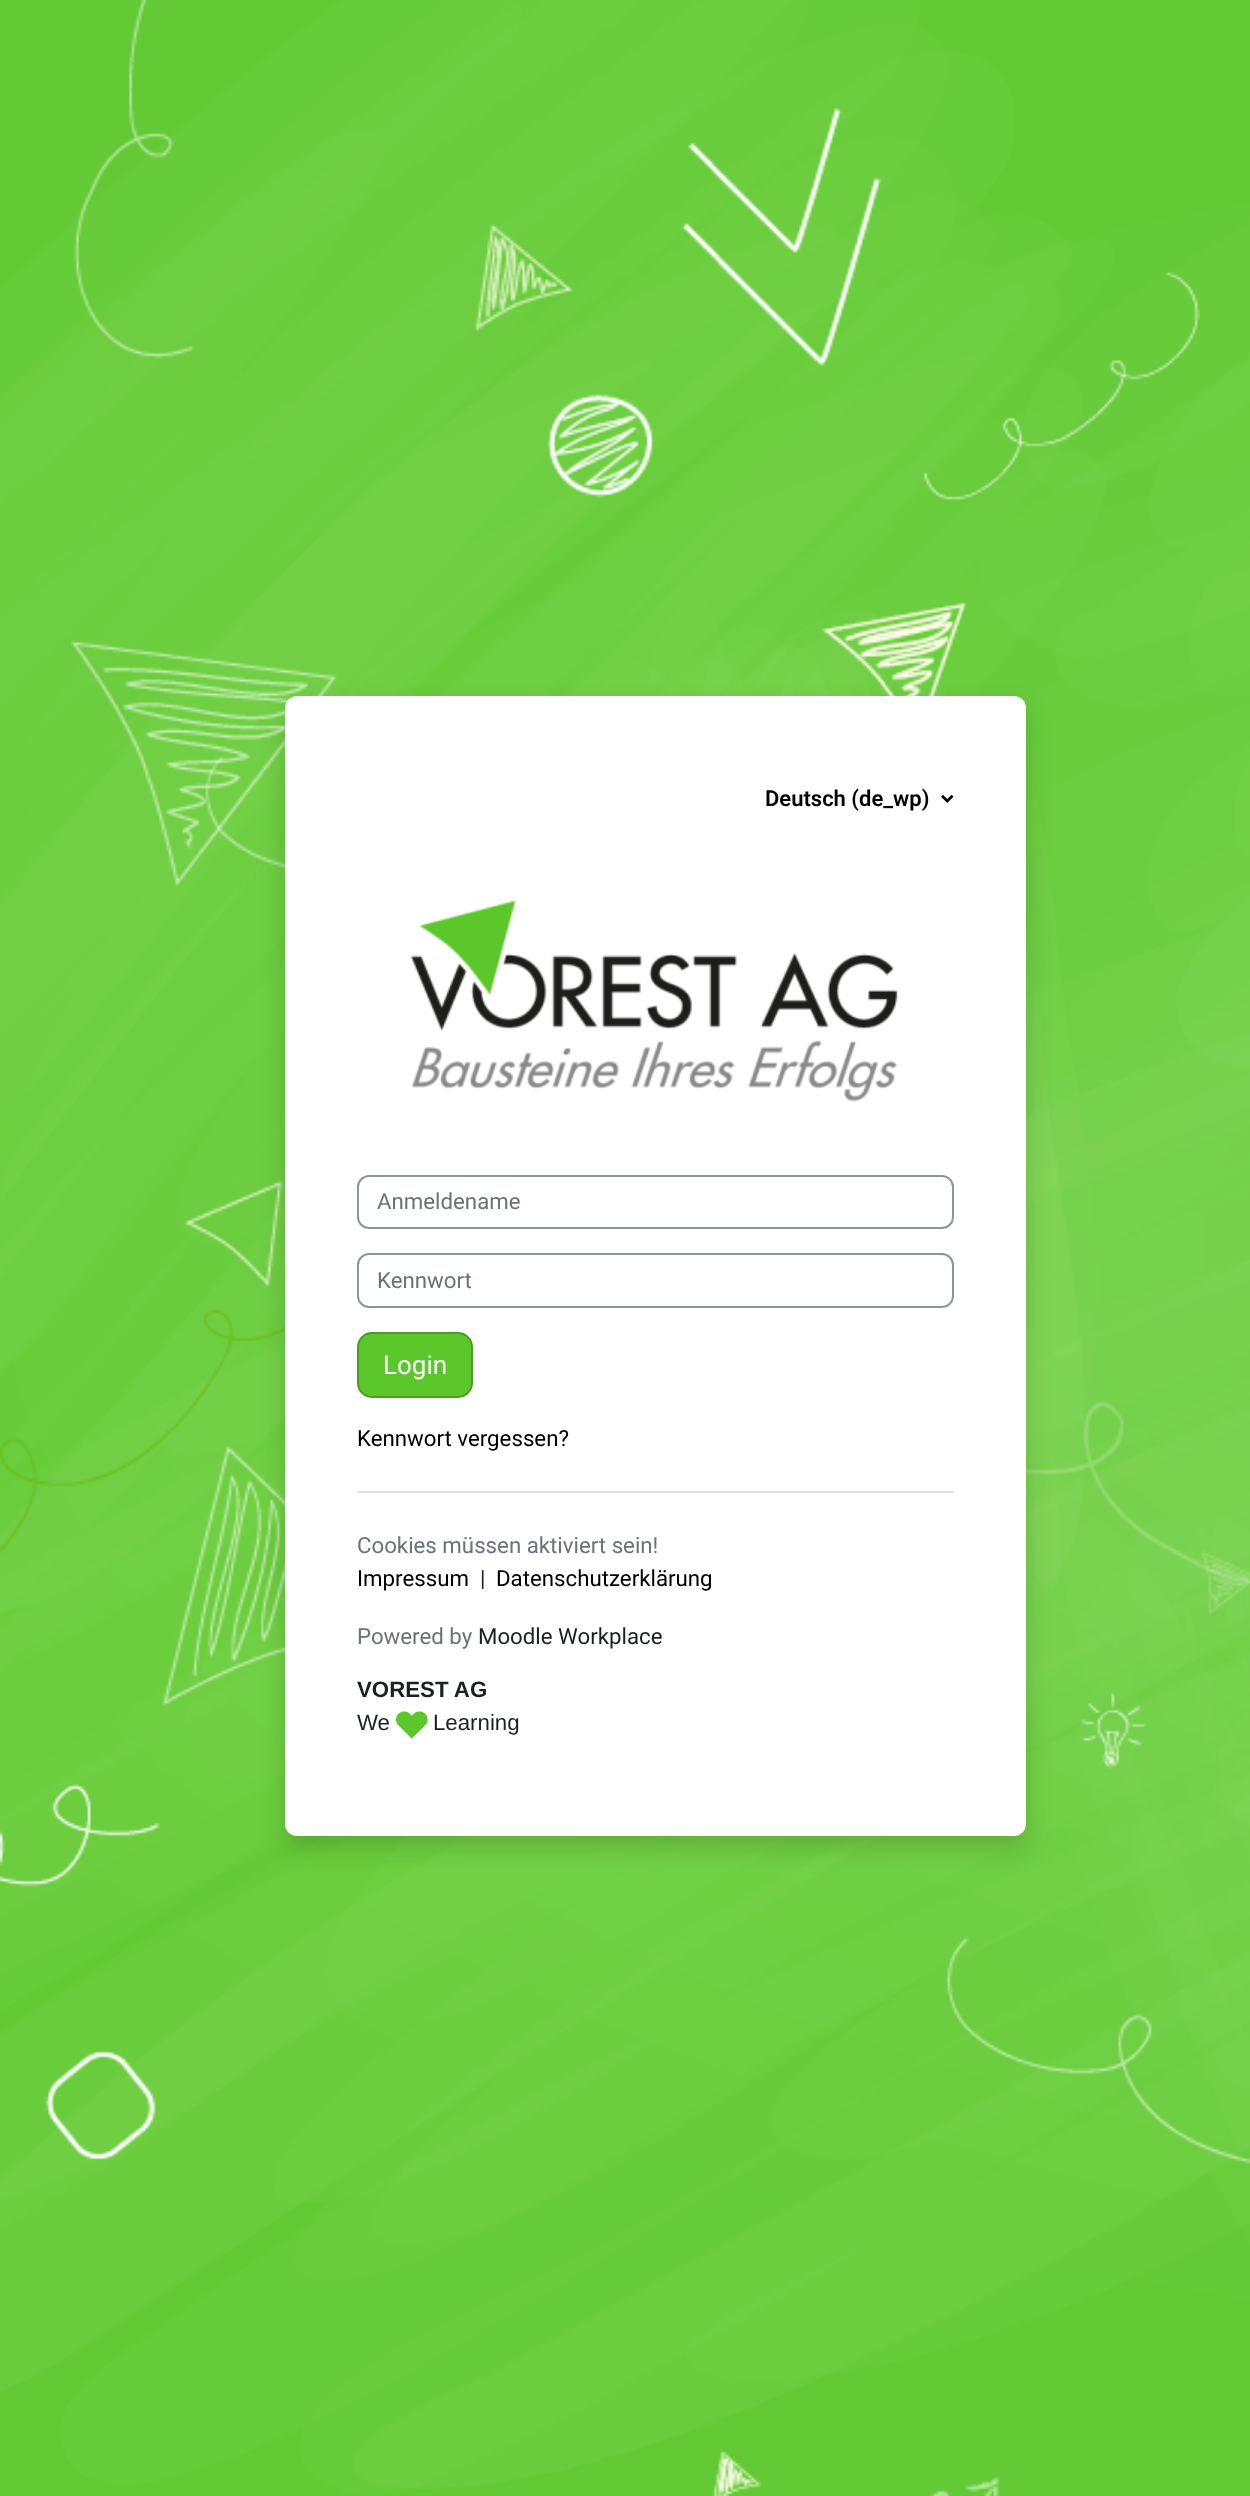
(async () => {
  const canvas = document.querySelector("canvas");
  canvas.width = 1250;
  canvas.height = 2496;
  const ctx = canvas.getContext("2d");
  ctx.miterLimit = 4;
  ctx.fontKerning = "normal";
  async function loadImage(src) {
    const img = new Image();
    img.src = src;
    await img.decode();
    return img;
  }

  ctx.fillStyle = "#ffffff";
  ctx.fillRect(0, 0, 1250, 2496);
  ctx.drawImage(await loadImage("img/1.png"), 0, 0, 1250, 2496);
  ctx.fillStyle = "rgba(0, 0, 0, 0.15)";
  ctx.filter = "blur(12px)";
  ctx.beginPath();
  ctx.roundRect(285, 708, 741, 1140, 12);
  ctx.fill();
  ctx.filter = "none";
  ctx.fillStyle = "#ffffff";
  ctx.beginPath();
  ctx.roundRect(285, 696, 741, 1140, 12);
  ctx.fill();
  ctx.drawImage(await loadImage("img/2.png"), 941, 795, 13, 8);
  ctx.drawImage(await loadImage("img/3.png"), 410, 899, 488, 203);
  ctx.beginPath();
  ctx.roundRect(358, 1176, 595, 52, 11);
  ctx.strokeStyle = "#8f959e";
  ctx.lineWidth = 2;
  ctx.stroke();
  ctx.beginPath();
  ctx.roundRect(358, 1254, 595, 53, 11);
  ctx.stroke();
  ctx.fillStyle = "#5bc72b";
  ctx.beginPath();
  ctx.roundRect(358, 1333, 114, 64, 14);
  ctx.fill();
  ctx.strokeStyle = "#489d22";
  ctx.stroke();
  ctx.fillStyle = "#dee2e6";
  ctx.fillRect(357, 1491, 597, 2);
  ctx.drawImage(await loadImage("img/4.png"), 396, 1711, 32, 28);
  ctx.font = "600 22px Roboto";
  ctx.fillStyle = "#000000";
  ctx.fillText("Deutsch (de_wp)", 765, 806);
  ctx.font = "22.25px Roboto";
  ctx.fillStyle = "#6a737b";
  ctx.fillText("Anmeldename", 377, 1209);
  ctx.fillText("Kennwort", 377, 1288);
  ctx.font = "26px Roboto";
  ctx.fillStyle = "#ffffff";
  ctx.fillText("Login", 383, 1374);
  ctx.font = "22.25px Roboto";
  ctx.fillStyle = "#000000";
  ctx.fillText("Kennwort vergessen?", 357, 1446);
  ctx.fillStyle = "#6a737b";
  ctx.fillText("Cookies müssen aktiviert sein!", 357, 1553);
  ctx.fillStyle = "#000000";
  ctx.fillText("Impressum", 357, 1586);
  ctx.fillStyle = "#1d2125";
  ctx.fillText("|", 480, 1586);
  ctx.fillStyle = "#000000";
  ctx.fillText("Datenschutzerklärung", 496, 1586);
  ctx.fillStyle = "#6a737b";
  ctx.fillText("Powered by", 357, 1644);
  ctx.fillStyle = "#1d2125";
  ctx.fillText("Moodle Workplace", 478, 1644);
  ctx.font = "bold 22.25px Liberation Sans";
  ctx.fillText("VOREST AG", 357, 1697);
  ctx.font = "22.25px Liberation Sans";
  ctx.fillText("We", 357, 1730);
  ctx.fillText("Learning", 433, 1730);
})();
